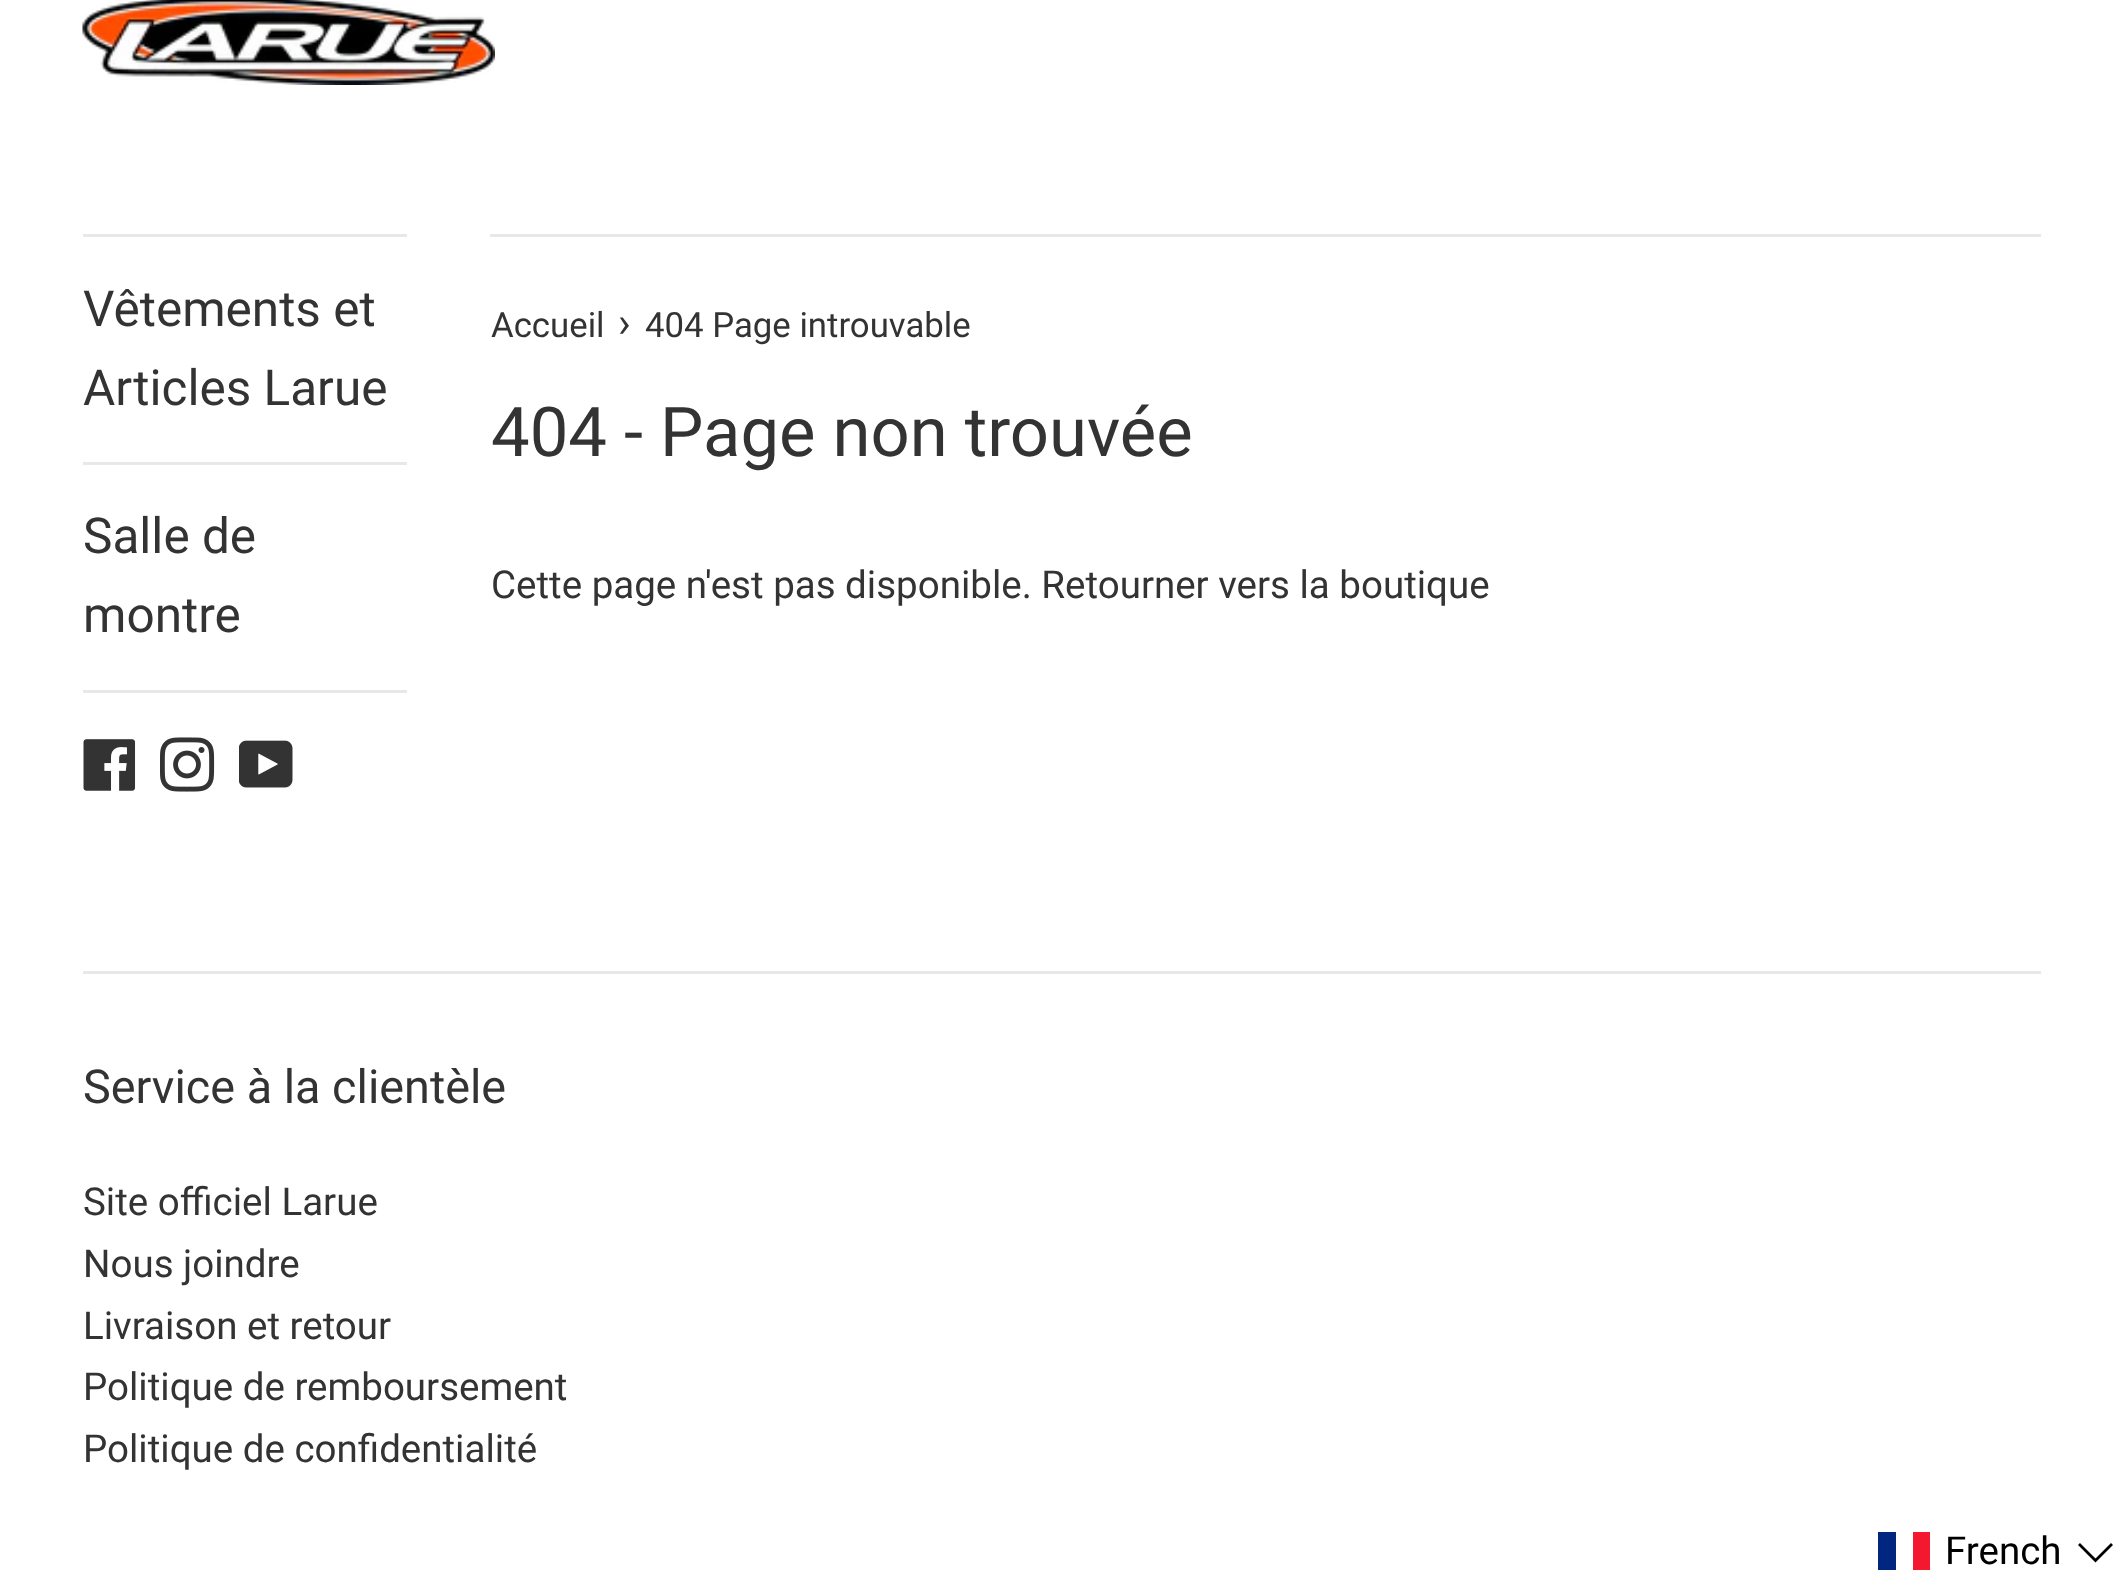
(async () => {
  const canvas = document.querySelector("canvas");
  canvas.width = 2123;
  canvas.height = 1581;
  const ctx = canvas.getContext("2d");
  ctx.miterLimit = 4;
  ctx.fontKerning = "normal";
  async function loadImage(src) {
    const img = new Image();
    img.src = src;
    await img.decode();
    return img;
  }
  let path;

  ctx.fillStyle = "#ffffff";
  ctx.fillRect(0, 0, 2123, 1581);
  ctx.drawImage(await loadImage("img/1.png"), 82, 0, 413, 85);
  for (const [x, y, w, h, color] of [
    [83, 234, 324, 3, "#e8e8e8"],
    [83, 462, 324, 3, "#e8e8e8"],
    [83, 690, 324, 3, "#e8e8e8"],
  ]) {
    ctx.fillStyle = color;
    ctx.fillRect(x, y, w, h);
  }
  ctx.drawImage(await loadImage("img/2.png"), 83, 739, 53, 52);
  ctx.drawImage(await loadImage("img/3.png"), 160, 737, 55, 55);
  ctx.drawImage(await loadImage("img/4.png"), 239, 740, 54, 48);
  for (const [x, y, w, h, color] of [
    [490, 234, 1551, 3, "#e8e8e8"],
    [83, 971, 1958, 3, "#e8e8e8"],
    [1878, 1532, 18, 38, "#00267f"],
    [1913, 1532, 17, 38, "#f31830"],
  ]) {
    ctx.fillStyle = color;
    ctx.fillRect(x, y, w, h);
  }
  path = new Path2D("M2079 1544L2095.5 1560.5L2112 1544");
  ctx.strokeStyle = "#000000";
  ctx.lineWidth = 2.8;
  ctx.stroke(path);
  ctx.font = "49.5px Roboto";
  ctx.fillStyle = "#333333";
  for (const [text, x, y] of [
    ["Vêtements et", 83, 326],
    ["Articles Larue", 83, 405],
    ["Salle de", 83, 553],
    ["montre", 83, 632],
  ]) {
    ctx.fillText(text, x, y);
  }
  ctx.font = "34.75px Roboto";
  ctx.fillText("Accueil", 491, 337);
  ctx.font = "42px Roboto";
  ctx.fillText("›", 618, 337);
  ctx.font = "34.75px Roboto";
  ctx.fillText("404 Page introuvable", 645, 337);
  ctx.font = "68.75px Roboto";
  ctx.fillText("404 - Page non trouvée", 491, 456);
  ctx.font = "38.5px Roboto";
  ctx.fillText("Cette page n'est pas disponible. Retourner vers la boutique", 491, 598);
  ctx.font = "46.75px Roboto";
  ctx.fillText("Service à la clientèle", 83, 1103);
  ctx.font = "38.5px Roboto";
  for (const [text, x, y] of [
    ["Site officiel Larue", 83, 1215],
    ["Nous joindre", 83, 1277],
    ["Livraison et retour", 83, 1339],
    ["Politique de remboursement", 83, 1400],
    ["Politique de confidentialité", 83, 1462],
  ]) {
    ctx.fillText(text, x, y);
  }
  ctx.fillStyle = "#000000";
  ctx.fillText("French", 1945, 1564);
})();
